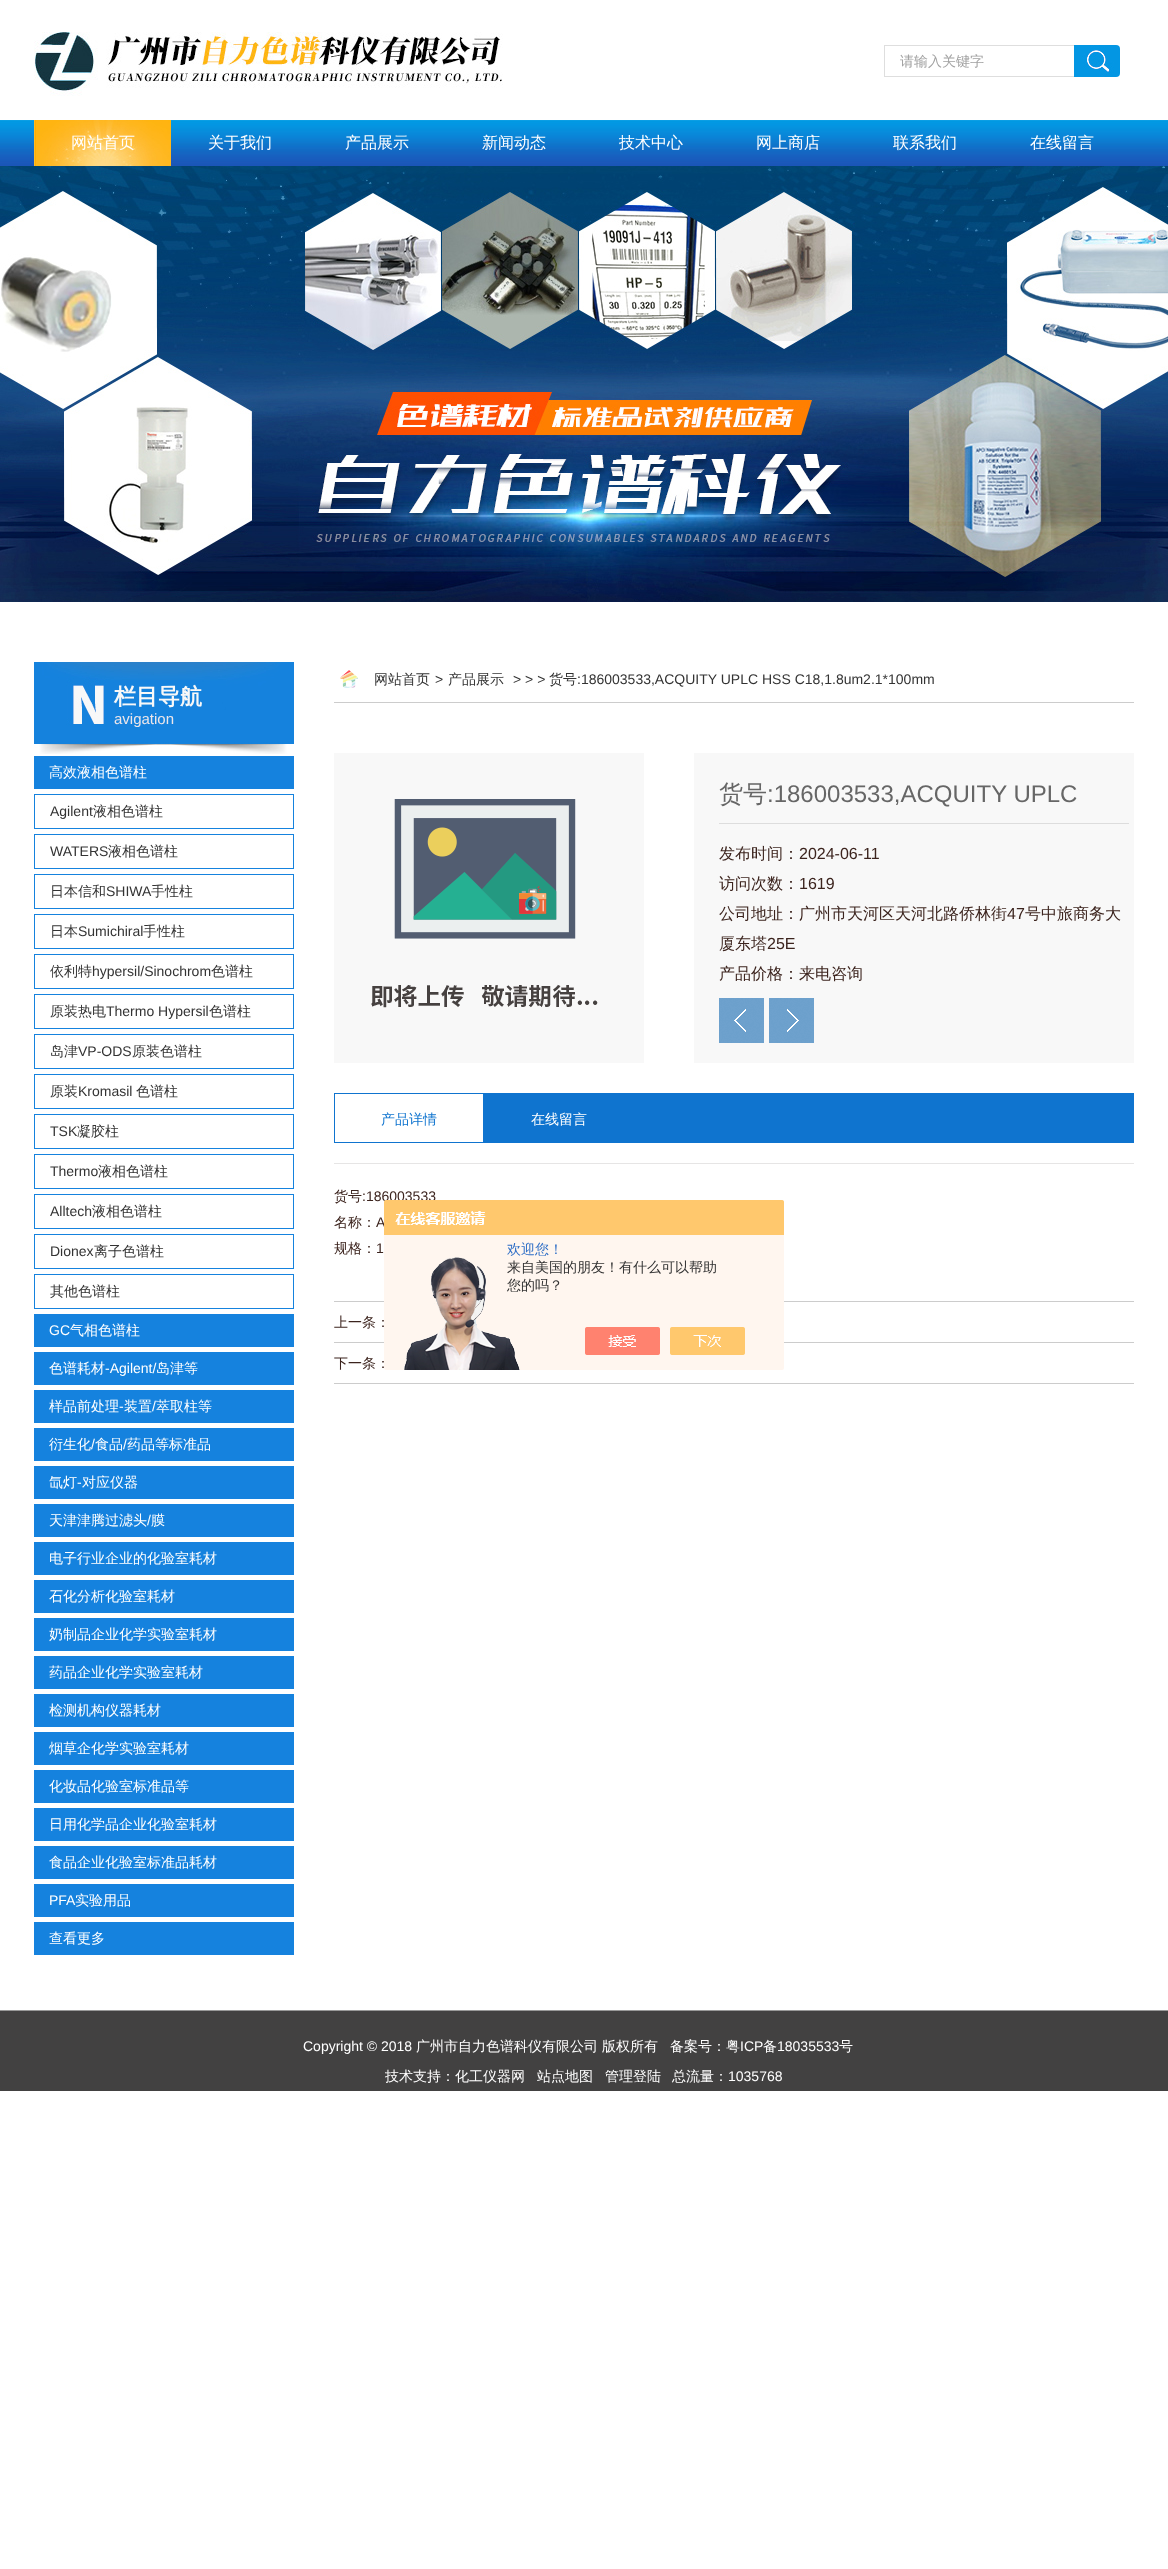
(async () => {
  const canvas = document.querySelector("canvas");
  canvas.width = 1168;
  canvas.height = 2569;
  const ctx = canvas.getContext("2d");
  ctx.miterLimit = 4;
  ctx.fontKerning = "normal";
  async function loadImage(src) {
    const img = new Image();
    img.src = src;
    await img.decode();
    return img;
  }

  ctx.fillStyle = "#ffffff";
  ctx.fillRect(0, 0, 1168, 2569);
  ctx.drawImage(await loadImage("img/1.png"), 34, 32, 469, 64);
  for (const [x, y, w, h, color] of [
    [884, 45, 190, 1, "#dedede"],
    [884, 76, 190, 1, "#dedede"],
    [884, 45, 1, 32, "#dedede"],
  ]) {
    ctx.fillStyle = color;
    ctx.fillRect(x, y, w, h);
  }
  ctx.drawImage(await loadImage("img/2.png"), 1074, 45, 46, 32);
  ctx.drawImage(await loadImage("img/3.png"), 0, 120, 1168, 46);
  ctx.drawImage(await loadImage("img/4.png"), 34, 120, 137, 46);
  ctx.drawImage(await loadImage("img/5.png"), 0, 166, 1168, 436);
  ctx.drawImage(await loadImage("img/6.png"), 34, 662, 260, 92);
  ctx.fillStyle = "#1582de";
  ctx.fillRect(34, 756, 260, 33);
  ctx.strokeStyle = "#1582de";
  ctx.strokeRect(34.5, 794.5, 259, 34);
  ctx.strokeRect(34.5, 834.5, 259, 34);
  ctx.strokeRect(34.5, 874.5, 259, 34);
  ctx.strokeRect(34.5, 914.5, 259, 34);
  ctx.strokeRect(34.5, 954.5, 259, 34);
  ctx.strokeRect(34.5, 994.5, 259, 34);
  ctx.strokeRect(34.5, 1034.5, 259, 34);
  ctx.strokeRect(34.5, 1074.5, 259, 34);
  ctx.strokeRect(34.5, 1114.5, 259, 34);
  ctx.strokeRect(34.5, 1154.5, 259, 34);
  ctx.strokeRect(34.5, 1194.5, 259, 34);
  ctx.strokeRect(34.5, 1234.5, 259, 34);
  ctx.strokeRect(34.5, 1274.5, 259, 34);
  for (const [x, y, w, h, color] of [
    [34, 1314, 260, 33, "#1582de"],
    [34, 1352, 260, 33, "#1582de"],
    [34, 1390, 260, 33, "#1582de"],
    [34, 1428, 260, 33, "#1582de"],
    [34, 1466, 260, 33, "#1582de"],
    [34, 1504, 260, 33, "#1582de"],
    [34, 1542, 260, 33, "#1582de"],
    [34, 1580, 260, 33, "#1582de"],
    [34, 1618, 260, 33, "#1582de"],
    [34, 1656, 260, 33, "#1582de"],
    [34, 1694, 260, 33, "#1582de"],
    [34, 1732, 260, 33, "#1582de"],
    [34, 1770, 260, 33, "#1582de"],
    [34, 1808, 260, 33, "#1582de"],
    [34, 1846, 260, 33, "#1582de"],
    [34, 1884, 260, 33, "#1582de"],
    [34, 1922, 260, 33, "#1582de"],
    [334, 702, 800, 1, "#cccccc"],
  ]) {
    ctx.fillStyle = color;
    ctx.fillRect(x, y, w, h);
  }
  ctx.drawImage(await loadImage("img/7.png"), 340, 670, 18, 18);
  ctx.fillStyle = "#f8f8f8";
  ctx.fillRect(334, 753, 310, 310);
  ctx.drawImage(await loadImage("img/8.png"), 371, 799, 227, 209);
  ctx.fillRect(694, 753, 440, 310);
  ctx.drawImage(await loadImage("img/9.png"), 719, 998, 45, 45);
  ctx.drawImage(await loadImage("img/10.png"), 769, 998, 45, 45);
  ctx.fillStyle = "#dddddd";
  ctx.fillRect(719, 823, 410, 1);
  ctx.fillStyle = "#0f74cf";
  ctx.fillRect(484, 1093, 650, 50);
  ctx.strokeStyle = "#0f74cf";
  ctx.strokeRect(334.5, 1093.5, 149, 49);
  for (const [x, y, w, h, color] of [
    [334, 1163, 800, 1, "#e6e5e5"],
    [334, 1301, 800, 1, "#cccccc"],
    [334, 1342, 800, 1, "#cccccc"],
    [334, 1383, 800, 1, "#cccccc"],
    [0, 2011, 1168, 80, "#424141"],
    [0, 2010, 1168, 1, "#999999"],
  ]) {
    ctx.fillStyle = color;
    ctx.fillRect(x, y, w, h);
  }
  ctx.font = "500 14px WenQuanYi Zen Hei";
  ctx.fillStyle = "#a1a1a1";
  ctx.fillText("请输入关键字", 900, 66);
  ctx.font = "500 16px WenQuanYi Zen Hei";
  ctx.fillStyle = "#ffffff";
  for (const [text, x, y] of [
    ["网站首页", 71, 148],
    ["关于我们", 208, 148],
    ["产品展示", 345, 148],
    ["新闻动态", 482, 148],
    ["技术中心", 619, 148],
    ["网上商店", 756, 148],
    ["联系我们", 893, 148],
    ["在线留言", 1030, 148],
  ]) {
    ctx.fillText(text, x, y);
  }
  ctx.font = "bold 22px WenQuanYi Zen Hei";
  ctx.fillStyle = "#f8f8f8";
  ctx.fillText("栏目导航", 114, 704);
  ctx.font = "15px Liberation Sans";
  ctx.fillStyle = "#ece6ea";
  ctx.fillText("avigation", 114, 724);
  ctx.font = "500 14px WenQuanYi Zen Hei";
  ctx.fillStyle = "#ffffff";
  ctx.fillText("高效液相色谱柱", 49, 777);
  ctx.font = "14px Liberation Sans";
  ctx.fillStyle = "#333333";
  ctx.fillText("Agilent", 50, 816);
  ctx.font = "500 14px WenQuanYi Zen Hei";
  ctx.fillText("液相色谱柱", 93, 816);
  ctx.font = "14px Liberation Sans";
  ctx.fillText("WATERS", 50, 856);
  ctx.font = "500 14px WenQuanYi Zen Hei";
  ctx.fillText("液相色谱柱", 108, 856);
  ctx.fillText("日本信和", 50, 896);
  ctx.font = "14px Liberation Sans";
  ctx.fillText("SHIWA", 106, 896);
  ctx.font = "500 14px WenQuanYi Zen Hei";
  ctx.fillText("手性柱", 151, 896);
  ctx.fillText("日本", 50, 936);
  ctx.font = "14px Liberation Sans";
  ctx.fillText("Sumichiral", 78, 936);
  ctx.font = "500 14px WenQuanYi Zen Hei";
  ctx.fillText("手性柱", 143, 936);
  ctx.fillText("依利特", 50, 976);
  ctx.font = "14px Liberation Sans";
  ctx.fillText("hypersil/Sinochrom", 92, 976);
  ctx.font = "500 14px WenQuanYi Zen Hei";
  ctx.fillText("色谱柱", 211, 976);
  ctx.fillText("原装热电", 50, 1016);
  ctx.font = "14px Liberation Sans";
  ctx.fillText("Thermo Hypersil", 106, 1016);
  ctx.font = "500 14px WenQuanYi Zen Hei";
  ctx.fillText("色谱柱", 209, 1016);
  ctx.fillText("岛津", 50, 1056);
  ctx.font = "14px Liberation Sans";
  ctx.fillText("VP-ODS", 78, 1056);
  ctx.font = "500 14px WenQuanYi Zen Hei";
  ctx.fillText("原装色谱柱", 132, 1056);
  ctx.fillText("原装", 50, 1096);
  ctx.font = "14px Liberation Sans";
  ctx.fillText("Kromasil", 78, 1096);
  ctx.font = "500 14px WenQuanYi Zen Hei";
  ctx.fillText("色谱柱", 136, 1096);
  ctx.font = "14px Liberation Sans";
  ctx.fillText("TSK", 50, 1136);
  ctx.font = "500 14px WenQuanYi Zen Hei";
  ctx.fillText("凝胶柱", 77, 1136);
  ctx.font = "14px Liberation Sans";
  ctx.fillText("Thermo", 50, 1176);
  ctx.font = "500 14px WenQuanYi Zen Hei";
  ctx.fillText("液相色谱柱", 98, 1176);
  ctx.font = "14px Liberation Sans";
  ctx.fillText("Alltech", 50, 1216);
  ctx.font = "500 14px WenQuanYi Zen Hei";
  ctx.fillText("液相色谱柱", 92, 1216);
  ctx.font = "14px Liberation Sans";
  ctx.fillText("Dionex", 50, 1256);
  ctx.font = "500 14px WenQuanYi Zen Hei";
  ctx.fillText("离子色谱柱", 94, 1256);
  ctx.fillText("其他色谱柱", 50, 1296);
  ctx.font = "14px Liberation Sans";
  ctx.fillStyle = "#ffffff";
  ctx.fillText("GC", 49, 1335);
  ctx.font = "500 14px WenQuanYi Zen Hei";
  ctx.fillText("气相色谱柱", 70, 1335);
  ctx.fillText("色谱耗材", 49, 1373);
  ctx.font = "14px Liberation Sans";
  ctx.fillText("-Agilent/", 105, 1373);
  ctx.font = "500 14px WenQuanYi Zen Hei";
  ctx.fillText("岛津等", 156, 1373);
  ctx.fillText("样品前处理", 49, 1411);
  ctx.font = "14px Liberation Sans";
  ctx.fillText("-", 119, 1411);
  ctx.font = "500 14px WenQuanYi Zen Hei";
  ctx.fillText("装置", 124, 1411);
  ctx.font = "14px Liberation Sans";
  ctx.fillText("/", 152, 1411);
  ctx.font = "500 14px WenQuanYi Zen Hei";
  ctx.fillText("萃取柱等", 156, 1411);
  ctx.fillText("衍生化", 49, 1449);
  ctx.font = "14px Liberation Sans";
  ctx.fillText("/", 91, 1449);
  ctx.font = "500 14px WenQuanYi Zen Hei";
  ctx.fillText("食品", 95, 1449);
  ctx.font = "14px Liberation Sans";
  ctx.fillText("/", 123, 1449);
  ctx.font = "500 14px WenQuanYi Zen Hei";
  ctx.fillText("药品等标准品", 127, 1449);
  ctx.fillText("氙灯", 49, 1487);
  ctx.font = "14px Liberation Sans";
  ctx.fillText("-", 77, 1487);
  ctx.font = "500 14px WenQuanYi Zen Hei";
  ctx.fillText("对应仪器", 82, 1487);
  ctx.fillText("天津津腾过滤头", 49, 1525);
  ctx.font = "14px Liberation Sans";
  ctx.fillText("/", 147, 1525);
  ctx.font = "500 14px WenQuanYi Zen Hei";
  for (const [text, x, y] of [
    ["膜", 151, 1525],
    ["电子行业企业的化验室耗材", 49, 1563],
    ["石化分析化验室耗材", 49, 1601],
    ["奶制品企业化学实验室耗材", 49, 1639],
    ["药品企业化学实验室耗材", 49, 1677],
    ["检测机构仪器耗材", 49, 1715],
    ["烟草企化学实验室耗材", 49, 1753],
    ["化妆品化验室标准品等", 49, 1791],
    ["日用化学品企业化验室耗材", 49, 1829],
    ["食品企业化验室标准品耗材", 49, 1867],
  ]) {
    ctx.fillText(text, x, y);
  }
  ctx.font = "14px Liberation Sans";
  ctx.fillText("PFA", 49, 1905);
  ctx.font = "500 14px WenQuanYi Zen Hei";
  ctx.fillText("实验用品", 75, 1905);
  ctx.fillText("查看更多", 49, 1943);
  ctx.fillStyle = "#333333";
  ctx.fillText("网站首页", 374, 684);
  ctx.font = "14px Liberation Sans";
  ctx.fillText(">", 435, 684);
  ctx.font = "500 14px WenQuanYi Zen Hei";
  ctx.fillText("产品展示", 448, 684);
  ctx.font = "14px Liberation Sans";
  ctx.fillText("> > >", 513, 684);
  ctx.font = "500 14px WenQuanYi Zen Hei";
  ctx.fillText("货号", 549, 684);
  ctx.font = "14px Liberation Sans";
  ctx.fillText(":186003533,ACQUITY UPLC HSS C18,1.8um2.1*100mm", 577, 684);
  ctx.font = "500 24px WenQuanYi Zen Hei";
  ctx.fillStyle = "#666666";
  ctx.fillText("货号", 719, 802);
  ctx.font = "24px Liberation Sans";
  ctx.fillText(":186003533,ACQUITY UPLC", 767, 802);
  ctx.font = "500 16px WenQuanYi Zen Hei";
  ctx.fillStyle = "#3c241e";
  ctx.fillText("发布时间：", 719, 859);
  ctx.font = "16px Liberation Sans";
  ctx.fillText("2024-06-11", 799, 859);
  ctx.font = "500 16px WenQuanYi Zen Hei";
  ctx.fillText("访问次数：", 719, 889);
  ctx.font = "16px Liberation Sans";
  ctx.fillText("1619", 799, 889);
  ctx.font = "500 16px WenQuanYi Zen Hei";
  ctx.fillText("公司地址：广州市天河区天河北路侨林街", 719, 919);
  ctx.font = "16px Liberation Sans";
  ctx.fillText("47", 1007, 919);
  ctx.font = "500 16px WenQuanYi Zen Hei";
  ctx.fillText("号中旅商务大", 1025, 919);
  ctx.fillText("厦东塔", 719, 949);
  ctx.font = "16px Liberation Sans";
  ctx.fillText("25E", 767, 949);
  ctx.font = "500 16px WenQuanYi Zen Hei";
  ctx.fillText("产品价格：来电咨询", 719, 979);
  ctx.font = "500 14px WenQuanYi Zen Hei";
  ctx.fillStyle = "#0f74cf";
  ctx.fillText("产品详情", 381, 1124);
  ctx.fillStyle = "#ffffff";
  ctx.fillText("在线留言", 531, 1124);
  ctx.fillStyle = "#3c241e";
  ctx.fillText("货号", 334, 1201);
  ctx.font = "14px Liberation Sans";
  ctx.fillText(":186003533", 362, 1201);
  ctx.font = "500 14px WenQuanYi Zen Hei";
  ctx.fillText("名称：", 334, 1227);
  ctx.font = "14px Liberation Sans";
  ctx.fillText("A", 376, 1227);
  ctx.font = "500 14px WenQuanYi Zen Hei";
  ctx.fillText("规格：", 334, 1253);
  ctx.font = "14px Liberation Sans";
  ctx.fillText("1", 376, 1253);
  ctx.font = "500 14px WenQuanYi Zen Hei";
  ctx.fillText("上一条：", 334, 1327);
  ctx.fillText("下一条：", 334, 1368);
  ctx.drawImage(await loadImage("img/11.png"), 384, 1200, 400, 170);
  ctx.fillStyle = "#2e6ec6";
  ctx.fillText("欢迎您！", 507, 1254);
  ctx.fillStyle = "#333333";
  ctx.fillText("来自美国的朋友！有什么可以帮助", 507, 1272);
  ctx.fillText("您的吗？", 507, 1290);
  ctx.font = "14px Liberation Sans";
  ctx.fillStyle = "#ffffff";
  ctx.fillText("Copyright © 2018", 303, 2051);
  ctx.font = "500 14px WenQuanYi Zen Hei";
  for (const [text, x, y] of [
    ["广州市自力色谱科仪有限公司", 416, 2051],
    ["版权所有", 602, 2051],
    ["备案号：粤", 670, 2051],
  ]) {
    ctx.fillText(text, x, y);
  }
  ctx.font = "14px Liberation Sans";
  ctx.fillText("ICP", 740, 2051);
  ctx.font = "500 14px WenQuanYi Zen Hei";
  ctx.fillText("备", 763, 2051);
  ctx.font = "14px Liberation Sans";
  ctx.fillText("18035533", 777, 2051);
  ctx.font = "500 14px WenQuanYi Zen Hei";
  for (const [text, x, y] of [
    ["号", 839, 2051],
    ["技术支持：化工仪器网", 385, 2081],
    ["站点地图", 537, 2081],
    ["管理登陆", 605, 2081],
    ["总流量：", 672, 2081],
  ]) {
    ctx.fillText(text, x, y);
  }
  ctx.font = "14px Liberation Sans";
  ctx.fillText("1035768", 728, 2081);
})();
